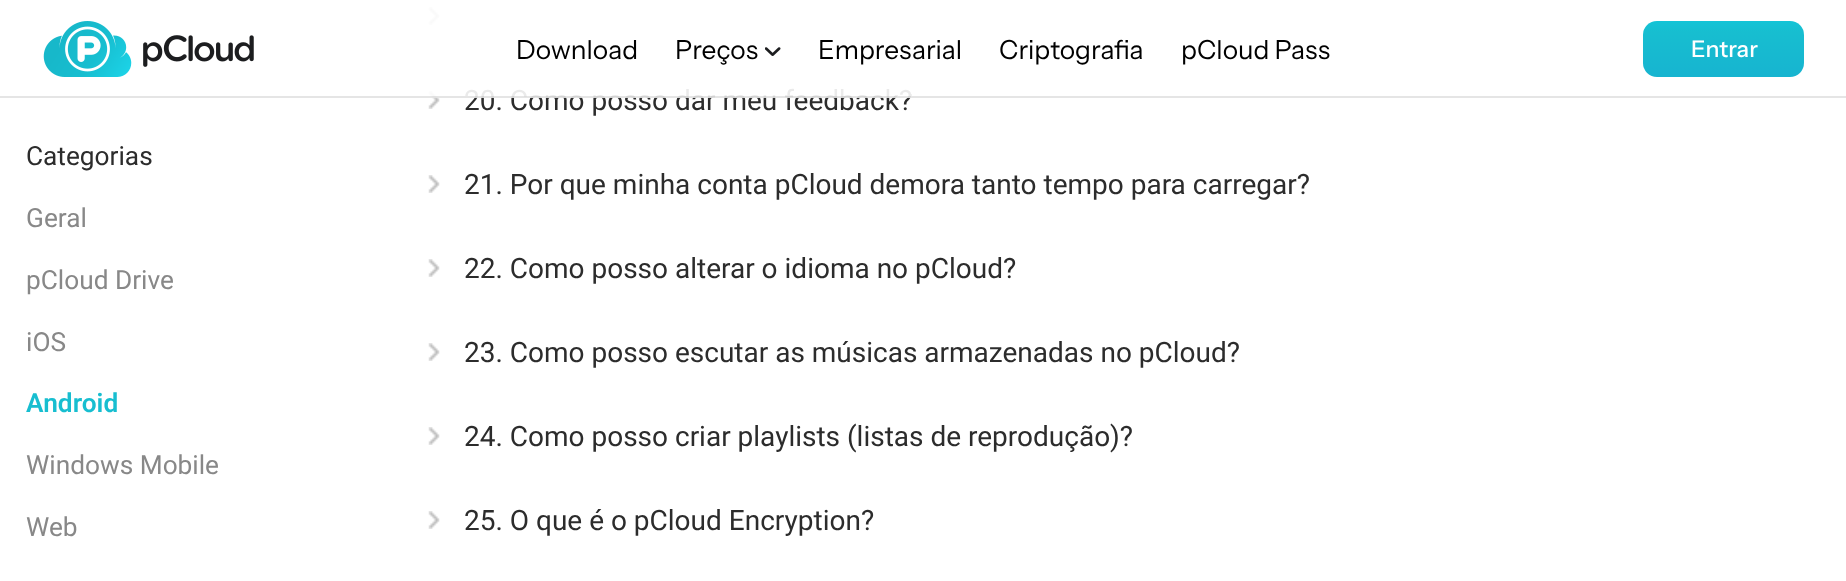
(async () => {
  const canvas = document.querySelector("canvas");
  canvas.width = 1846;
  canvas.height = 581;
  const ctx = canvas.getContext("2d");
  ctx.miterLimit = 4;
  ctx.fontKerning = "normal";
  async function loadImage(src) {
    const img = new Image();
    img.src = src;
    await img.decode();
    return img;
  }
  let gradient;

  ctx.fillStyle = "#ffffff";
  ctx.fillRect(0, 0, 1846, 581);
  ctx.drawImage(await loadImage("img/1.png"), 43, 21, 211, 56);
  gradient = ctx.createLinearGradient(1724, 21, 1724, 91);
  gradient.addColorStop(0, "#13c4d7");
  gradient.addColorStop(0.15, "#17bed0");
  gradient.addColorStop(1, "#17b1d0");
  ctx.fillStyle = gradient;
  ctx.beginPath();
  ctx.roundRect(1643, 21, 161, 56, 14);
  ctx.fill();
  ctx.drawImage(await loadImage("img/3.png"), 428, 7, 12, 18);
  ctx.drawImage(await loadImage("img/3.png"), 428, 91, 12, 18);
  ctx.drawImage(await loadImage("img/3.png"), 428, 175, 12, 18);
  ctx.drawImage(await loadImage("img/3.png"), 428, 259, 12, 18);
  ctx.drawImage(await loadImage("img/3.png"), 428, 343, 12, 18);
  ctx.drawImage(await loadImage("img/3.png"), 428, 427, 12, 18);
  ctx.drawImage(await loadImage("img/3.png"), 428, 511, 12, 18);
  ctx.font = "26.25px Instrument Sans";
  ctx.fillStyle = "#000000";
  ctx.fillText("Criptografia", 999, 59);
  ctx.fillText("pCloud Pass", 1181, 59);
  ctx.font = "500 23px Instrument Sans";
  ctx.fillStyle = "#ffffff";
  ctx.fillText("Entrar", 1691, 57);
  ctx.font = "26.25px Roboto";
  ctx.fillStyle = "#2c2c2c";
  ctx.fillText("Categorias", 26, 165);
  ctx.fillStyle = "#888888";
  for (const [text, x, y] of [
    ["Geral", 26, 227],
    ["pCloud Drive", 26, 289],
    ["iOS", 26, 351],
  ]) {
    ctx.fillText(text, x, y);
  }
  ctx.font = "600 26.25px Roboto";
  ctx.fillStyle = "#17bed0";
  ctx.fillText("Android", 26, 412);
  ctx.font = "26.25px Roboto";
  ctx.fillStyle = "#888888";
  ctx.fillText("Windows Mobile", 26, 474);
  ctx.fillText("Web", 26, 536);
  ctx.font = "28px Roboto";
  ctx.fillStyle = "#2c2c2c";
  ctx.fillText("20. Como posso dar meu feedback?", 464, 110);
  ctx.fillStyle = "rgba(255, 255, 255, 0.9)";
  ctx.fillRect(428, 7, 483, 91);
  ctx.drawImage(await loadImage("img/2.png"), 765, 47, 16, 9);
  ctx.font = "26.25px Instrument Sans";
  ctx.fillStyle = "#000000";
  for (const [text, x, y] of [
    ["Preços", 675, 59],
    ["Empresarial", 818, 59],
    ["Download", 516, 59],
  ]) {
    ctx.fillText(text, x, y);
  }
  ctx.fillStyle = "rgba(0, 0, 0, 0.1)";
  ctx.fillRect(0, 96, 1846, 2);
  ctx.font = "28px Roboto";
  ctx.fillStyle = "#2c2c2c";
  for (const [text, x, y] of [
    ["21. Por que minha conta pCloud demora tanto tempo para carregar?", 464, 194],
    ["22. Como posso alterar o idioma no pCloud?", 464, 278],
    ["23. Como posso escutar as músicas armazenadas no pCloud?", 464, 362],
    ["24. Como posso criar playlists (listas de reprodução)?", 464, 446],
    ["25. O que é o pCloud Encryption?", 464, 530],
  ]) {
    ctx.fillText(text, x, y);
  }
})();
